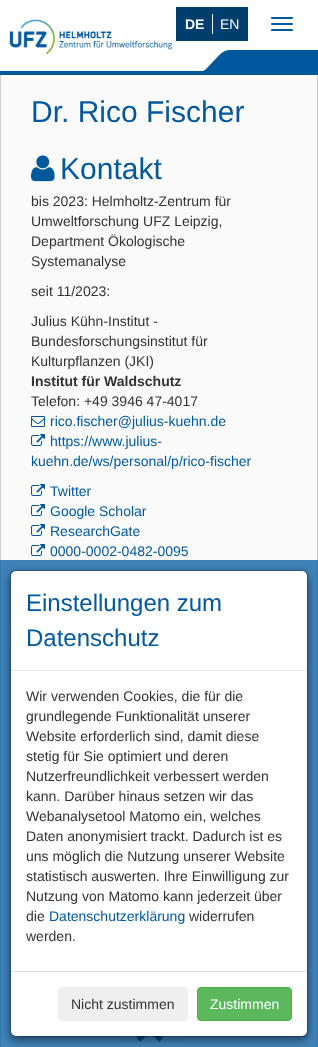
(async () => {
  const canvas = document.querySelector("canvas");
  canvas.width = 318;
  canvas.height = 1047;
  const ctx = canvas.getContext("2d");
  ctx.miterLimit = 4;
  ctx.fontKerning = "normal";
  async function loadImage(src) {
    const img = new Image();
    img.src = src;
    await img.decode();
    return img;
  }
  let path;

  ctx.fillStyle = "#fafafa";
  ctx.fillRect(0, 0, 318, 1047);
  ctx.strokeStyle = "#dfdfdf";
  ctx.strokeRect(0.5, -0.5, 317, 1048);
  ctx.save();
  ctx.beginPath();
  ctx.rect(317, 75, 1, 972);
  ctx.clip();
  ctx.fillStyle = "rgba(0, 0, 0, 0.5)";
  ctx.filter = "blur(40px)";
  ctx.beginPath();
  ctx.rect(121, -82, 156, 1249);
  ctx.fill();
  ctx.filter = "none";
  ctx.restore();
  ctx.save();
  ctx.beginPath();
  ctx.rect(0, 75, 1, 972);
  ctx.clip();
  ctx.fillStyle = "rgba(0, 0, 0, 0.5)";
  ctx.filter = "blur(40px)";
  ctx.beginPath();
  ctx.rect(41, -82, 156, 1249);
  ctx.fill();
  ctx.filter = "none";
  ctx.restore();
  for (const [x, y, w, h, color] of [
    [0, 0, 318, 71, "#ffffff"],
    [0, 73, 318, 2, "#00589c"],
    [0, 71, 204, 2, "#00589c"],
  ]) {
    ctx.fillStyle = color;
    ctx.fillRect(x, y, w, h);
  }
  ctx.drawImage(await loadImage("img/1.png"), 9, 19, 163, 36);
  ctx.fillStyle = "#003e6e";
  ctx.fillRect(176, 7, 72, 34);
  ctx.fillStyle = "#f0f0f0";
  ctx.fillRect(212, 14, 1, 20);
  ctx.fillStyle = "#00589c";
  ctx.beginPath();
  ctx.roundRect(271, 17, 22, 2, 1);
  ctx.fill();
  ctx.beginPath();
  ctx.roundRect(271, 23, 22, 2, 1);
  ctx.fill();
  ctx.beginPath();
  ctx.roundRect(271, 29, 22, 2, 1);
  ctx.fill();
  path = new Path2D("M229.5 73H197.5C202 72.5 205 70 208 67L216 58.5C220 54.5 223.5 50 229.5 50Z");
  ctx.fill(path);
  ctx.fillRect(229, 50, 89, 23);
  ctx.drawImage(await loadImage("img/2.png"), 31, 155, 24, 27);
  ctx.drawImage(await loadImage("img/3.png"), 31, 416, 14, 11);
  ctx.drawImage(await loadImage("img/4.png"), 31, 434, 14, 12);
  ctx.drawImage(await loadImage("img/4.png"), 31, 484, 14, 12);
  ctx.drawImage(await loadImage("img/4.png"), 31, 504, 14, 12);
  ctx.drawImage(await loadImage("img/4.png"), 31, 524, 14, 12);
  ctx.drawImage(await loadImage("img/4.png"), 31, 544, 14, 12);
  ctx.fillStyle = "#ffffff";
  ctx.fillRect(118, 1036, 65, 11);
  ctx.drawImage(await loadImage("img/5.png"), 136, 1036, 27, 6);
  ctx.fillStyle = "rgba(0, 90, 160, 0.75)";
  ctx.fillRect(0, 560, 318, 487);
  ctx.fillStyle = "rgba(0, 0, 0, 0.5)";
  ctx.filter = "blur(4.5px)";
  ctx.beginPath();
  ctx.roundRect(10, 573, 298, 467, 6);
  ctx.fill();
  ctx.filter = "none";
  ctx.fillStyle = "#ffffff";
  ctx.beginPath();
  ctx.roundRect(11, 571, 296, 465, 5);
  ctx.fill();
  ctx.beginPath();
  ctx.roundRect(10.5, 570.5, 297, 466, 5.5);
  ctx.strokeStyle = "rgba(0, 0, 0, 0.2)";
  ctx.stroke();
  ctx.fillStyle = "#e5e5e5";
  ctx.fillRect(11, 670, 296, 1);
  ctx.fillRect(11, 971, 296, 1);
  ctx.fillStyle = "#efefef";
  ctx.beginPath();
  ctx.roundRect(58, 987, 130, 34, 4);
  ctx.fill();
  ctx.fillStyle = "#5cb85c";
  ctx.beginPath();
  ctx.roundRect(197.5, 987.5, 94, 33, 3.5);
  ctx.fill();
  ctx.strokeStyle = "#4cae4c";
  ctx.stroke();
  ctx.font = "bold 14px Liberation Sans";
  ctx.fillStyle = "#ffffff";
  ctx.fillText("DE", 185, 29);
  ctx.font = "14px Liberation Sans";
  ctx.fillText("EN", 220, 29);
  ctx.font = "30px Liberation Sans";
  ctx.fillStyle = "#00589c";
  ctx.fillText("Dr. Rico Fischer", 31, 122);
  ctx.fillText("Kontakt", 60, 179);
  ctx.font = "14px Liberation Sans";
  ctx.fillStyle = "#333333";
  for (const [text, x, y] of [
    ["bis 2023: Helmholtz-Zentrum für", 31, 206],
    ["Umweltforschung UFZ Leipzig,", 31, 226],
    ["Department Ökologische", 31, 246],
    ["Systemanalyse", 31, 266],
    ["seit 11/2023:", 31, 296],
    ["Julius Kühn-Institut -", 31, 326],
    ["Bundesforschungsinstitut für", 31, 346],
    ["Kulturpflanzen (JKI)", 31, 366],
  ]) {
    ctx.fillText(text, x, y);
  }
  ctx.font = "bold 14px Liberation Sans";
  ctx.fillText("Institut für Waldschutz", 31, 386);
  ctx.font = "14px Liberation Sans";
  ctx.fillText("Telefon: +49 3946 47-4017", 31, 406);
  ctx.fillStyle = "#00589c";
  for (const [text, x, y] of [
    ["rico.fischer@julius-kuehn.de", 50, 426],
    ["https://www.julius-", 50, 446],
    ["kuehn.de/ws/personal/p/rico-fischer", 31, 466],
    ["Twitter", 50, 496],
    ["Google Scholar", 50, 516],
    ["ResearchGate", 50, 536],
    ["0000-0002-0482-0095", 50, 556],
  ]) {
    ctx.fillText(text, x, y);
  }
  ctx.font = "24px Liberation Sans";
  ctx.fillText("Einstellungen zum", 26, 611);
  ctx.fillText("Datenschutz", 26, 646);
  ctx.font = "14px Liberation Sans";
  ctx.fillStyle = "#333333";
  for (const [text, x, y] of [
    ["Wir verwenden Cookies, die für die", 26, 701],
    ["grundlegende Funktionalität unserer", 26, 721],
    ["Website erforderlich sind, damit diese", 26, 741],
    ["stetig für Sie optimiert und deren", 26, 761],
    ["Nutzerfreundlichkeit verbessert werden", 26, 781],
    ["kann. Darüber hinaus setzen wir das", 26, 801],
    ["Webanalysetool Matomo ein, welches", 26, 821],
    ["Daten anonymisiert trackt. Dadurch ist es", 26, 841],
    ["uns möglich die Nutzung unserer Website", 26, 861],
    ["statistisch auswerten. Ihre Einwilligung zur", 26, 881],
    ["Nutzung von Matomo kann jederzeit über", 26, 901],
    ["die", 26, 921],
  ]) {
    ctx.fillText(text, x, y);
  }
  ctx.fillStyle = "#00589c";
  ctx.fillText("Datenschutzerklärung", 49, 921);
  ctx.fillStyle = "#333333";
  for (const [text, x, y] of [
    ["widerrufen", 189, 921],
    ["werden.", 26, 941],
    ["Nicht zustimmen", 71, 1009],
  ]) {
    ctx.fillText(text, x, y);
  }
  ctx.fillStyle = "#ffffff";
  ctx.fillText("Zustimmen", 210, 1009);
})();
